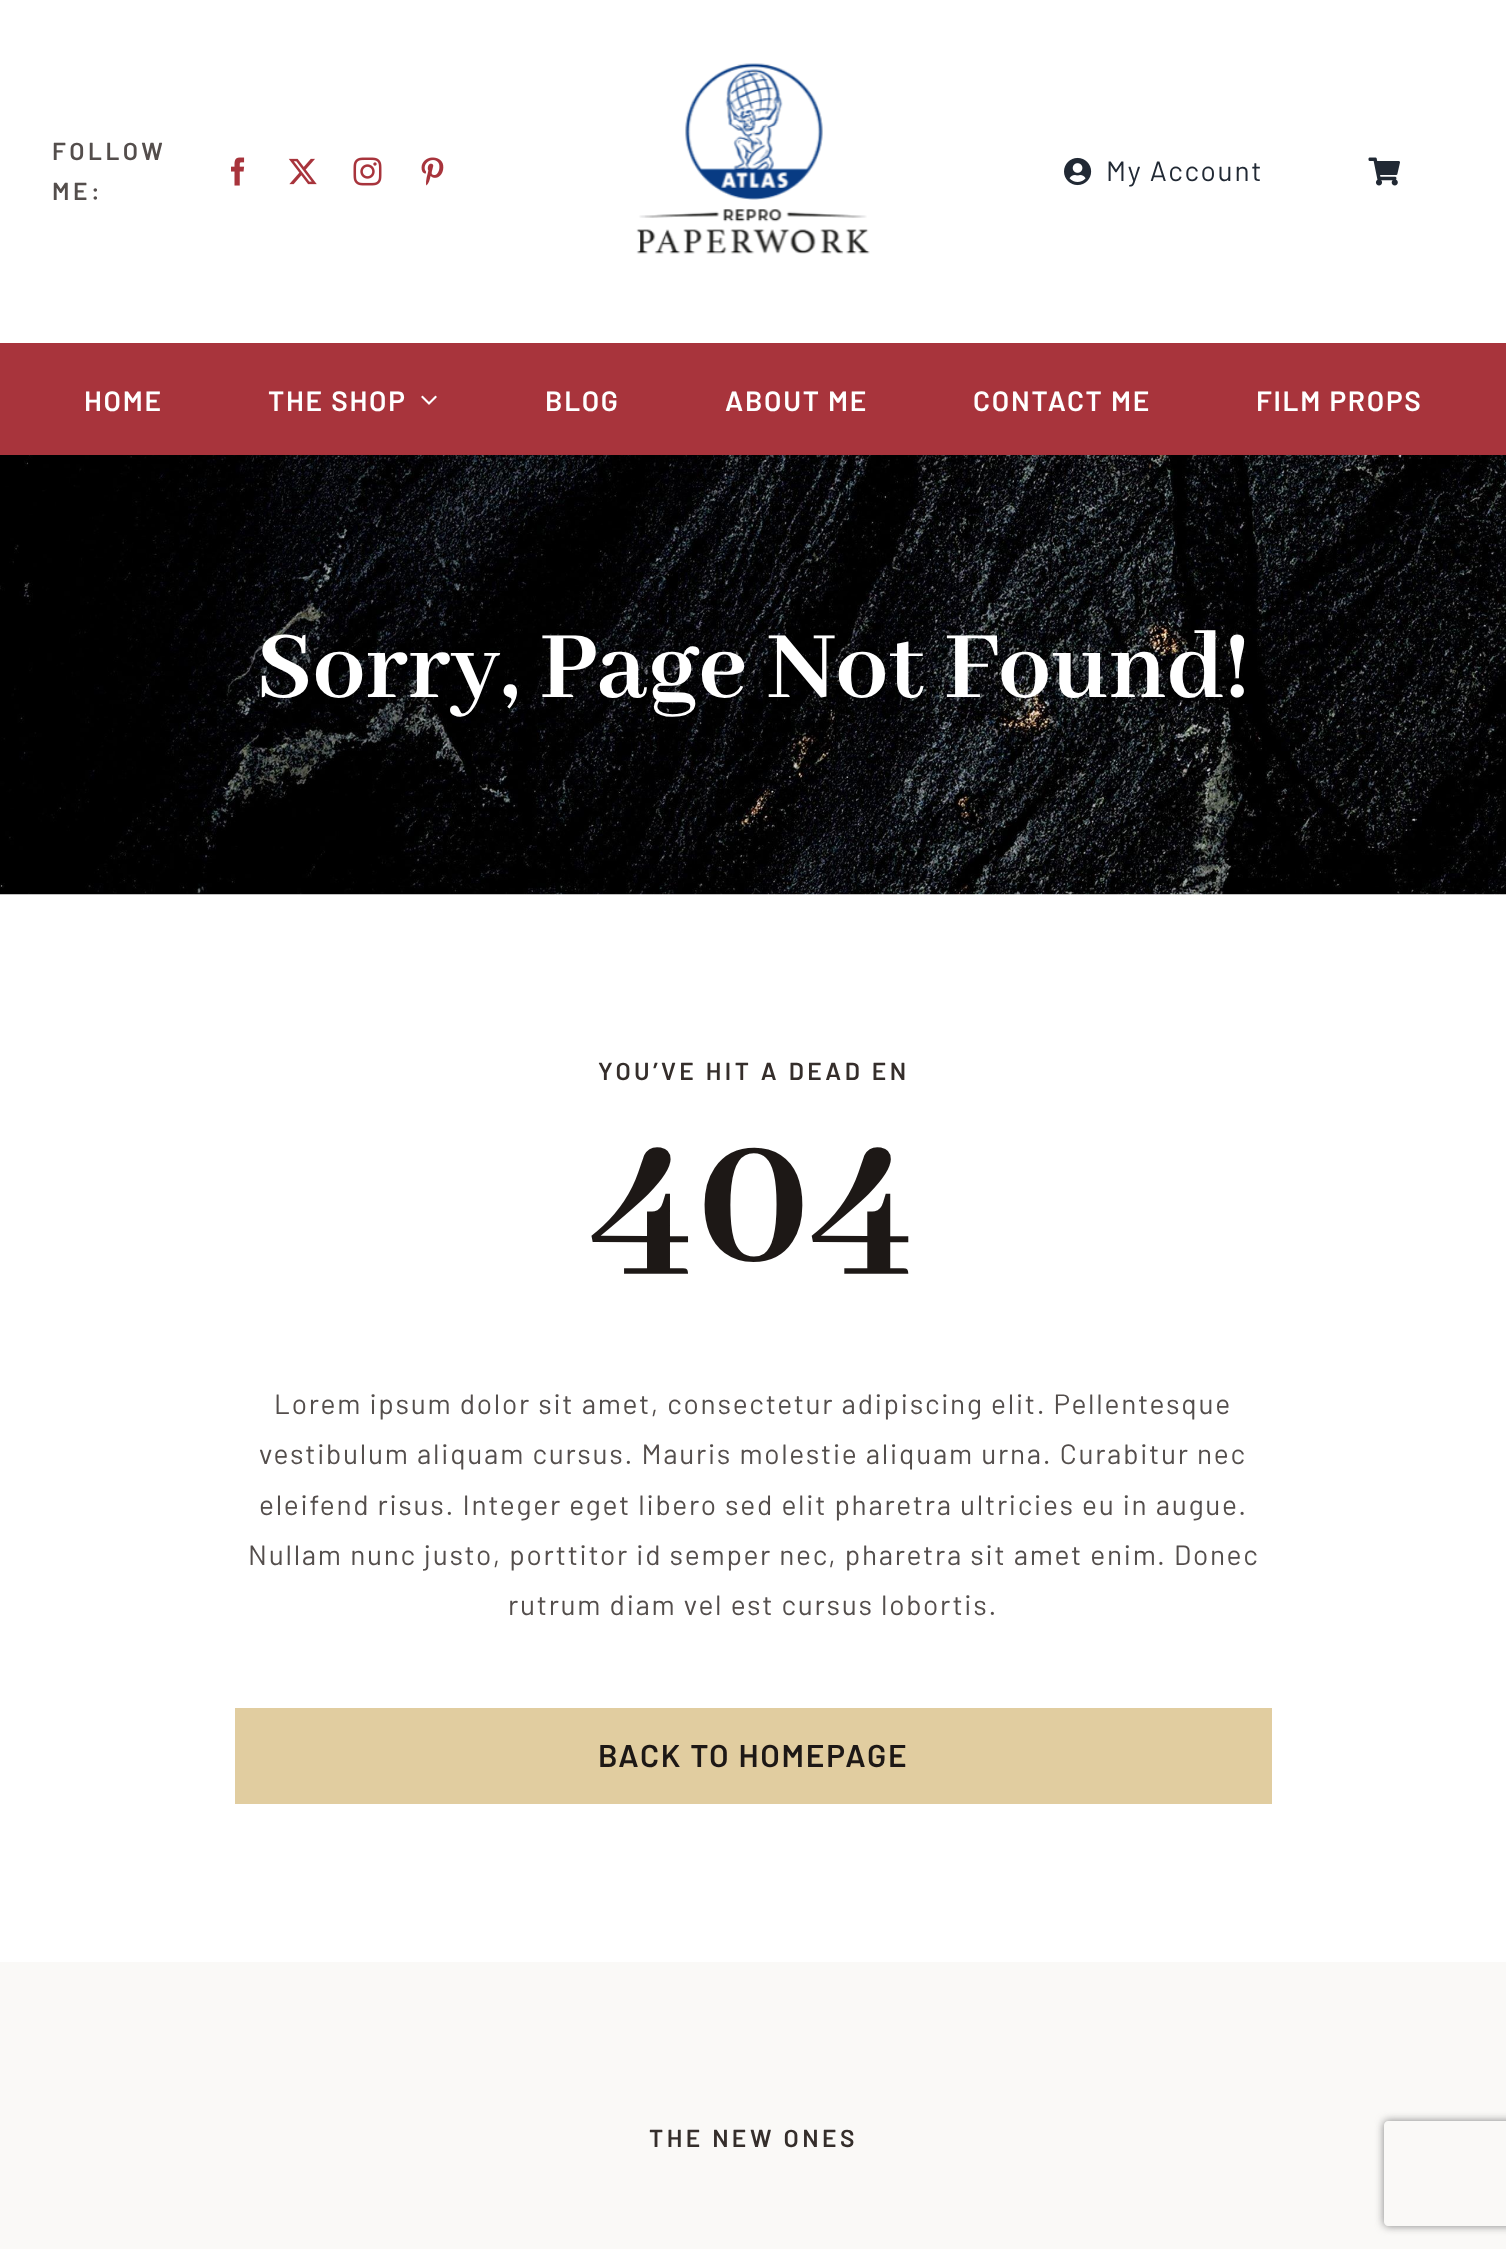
(async () => {
  const canvas = document.querySelector("canvas");
  canvas.width = 1506;
  canvas.height = 2249;
  const ctx = canvas.getContext("2d");
  ctx.miterLimit = 4;
  ctx.fontKerning = "normal";
  async function loadImage(src) {
    const img = new Image();
    img.src = src;
    await img.decode();
    return img;
  }
  let path;

  ctx.fillStyle = "#ffffff";
  ctx.fillRect(0, 0, 1506, 2249);
  ctx.drawImage(await loadImage("img/1.png"), 231, 157, 14, 29);
  ctx.drawImage(await loadImage("img/2.png"), 288, 158, 29, 27);
  ctx.drawImage(await loadImage("img/3.png"), 353, 157, 29, 29);
  ctx.drawImage(await loadImage("img/4.png"), 421, 157, 23, 29);
  ctx.drawImage(await loadImage("img/5.png"), 636, 63, 234, 191);
  ctx.drawImage(await loadImage("img/6.png"), 1064, 157, 28, 29);
  ctx.drawImage(await loadImage("img/7.png"), 1368, 157, 32, 29);
  ctx.fillStyle = "#a8343c";
  ctx.fillRect(0, 343, 1506, 112);
  ctx.drawImage(await loadImage("img/8.png"), 421, 395, 16, 10);
  ctx.drawImage(await loadImage("img/9.png"), 0, 455, 1506, 440);
  ctx.fillStyle = "#e1cda0";
  ctx.fillRect(235, 1708, 1037, 96);
  ctx.fillStyle = "#faf9f7";
  ctx.fillRect(0, 1962, 1506, 287);
  ctx.save();
  path = new Path2D("M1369 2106H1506V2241H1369ZM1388 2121H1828C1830 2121 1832 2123 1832 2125V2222C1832 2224 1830 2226 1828 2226H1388C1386 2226 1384 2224 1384 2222V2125C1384 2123 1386 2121 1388 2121Z");
  ctx.clip(path, "evenodd");
  ctx.fillStyle = "#808080";
  ctx.filter = "blur(4.5px)";
  ctx.beginPath();
  ctx.roundRect(1384, 2121, 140, 105, 4);
  ctx.fill();
  ctx.filter = "none";
  ctx.restore();
  ctx.letterSpacing = "3.5px";
  ctx.font = "600 24.5px Barlow";
  ctx.fillStyle = "#544e4c";
  ctx.fillText("FOLLOW", 52, 160);
  ctx.fillText("ME:", 52, 200);
  ctx.letterSpacing = "1.75px";
  ctx.font = "28px Barlow";
  ctx.fillStyle = "#212934";
  ctx.fillText("My Account", 1106, 181);
  ctx.font = "600 28px Barlow";
  ctx.fillStyle = "#ffffff";
  for (const [text, x, y] of [
    ["HOME", 84, 411],
    ["THE SHOP", 268, 411],
    ["BLOG", 545, 411],
    ["ABOUT ME", 725, 411],
    ["CONTACT ME", 973, 411],
    ["FILM PROPS", 1256, 411],
  ]) {
    ctx.fillText(text, x, y);
  }
  ctx.letterSpacing = "0px";
  ctx.font = "bold 105px Abhaya Libre";
  ctx.fillText("Sorry, Page Not Found!", 256, 697);
  ctx.letterSpacing = "3.5px";
  ctx.font = "600 24.5px Barlow";
  ctx.fillStyle = "#352e2b";
  ctx.fillText("YOU’VE HIT A DEAD EN", 598, 1080);
  ctx.letterSpacing = "0px";
  ctx.font = "bold 210px Abhaya Libre";
  ctx.fillStyle = "#1d1816";
  ctx.fillText("404", 590, 1260);
  ctx.letterSpacing = "1.75px";
  ctx.font = "28px Barlow";
  ctx.fillStyle = "#544e4c";
  for (const [text, x, y] of [
    ["Lorem ipsum dolor sit amet, consectetur adipiscing elit. Pellentesque", 274, 1414],
    ["vestibulum aliquam cursus. Mauris molestie aliquam urna. Curabitur nec", 259, 1464],
    ["eleifend risus. Integer eget libero sed elit pharetra ultricies eu in augue.", 259, 1515],
    ["Nullam nunc justo, porttitor id semper nec, pharetra sit amet enim. Donec", 248, 1565],
    ["rutrum diam vel est cursus lobortis.", 508, 1615],
  ]) {
    ctx.fillText(text, x, y);
  }
  ctx.font = "600 31.5px Barlow";
  ctx.fillStyle = "#1d1816";
  ctx.fillText("BACK TO HOMEPAGE", 598, 1767);
  ctx.letterSpacing = "3.5px";
  ctx.font = "600 24.5px Barlow";
  ctx.fillStyle = "#352e2b";
  ctx.fillText("THE NEW ONES", 649, 2147);
})();
